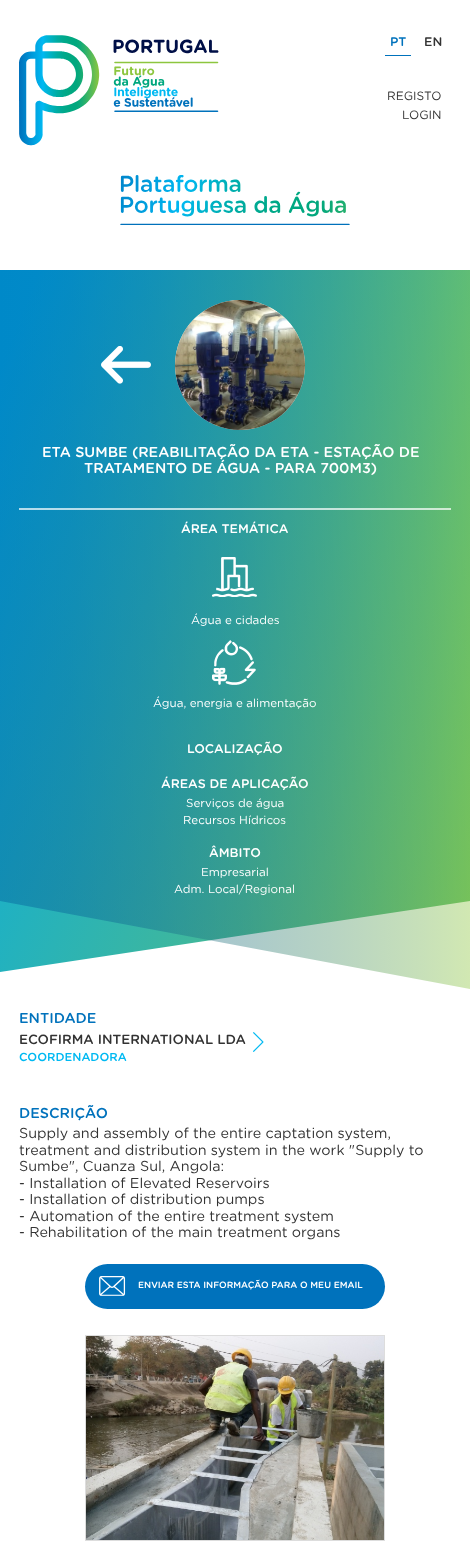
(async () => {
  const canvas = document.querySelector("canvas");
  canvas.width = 470;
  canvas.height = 1549;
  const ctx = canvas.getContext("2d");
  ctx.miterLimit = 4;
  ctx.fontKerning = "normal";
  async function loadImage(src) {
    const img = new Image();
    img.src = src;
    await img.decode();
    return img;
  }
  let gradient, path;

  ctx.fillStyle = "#ffffff";
  ctx.fillRect(0, 0, 470, 1549);
  ctx.drawImage(await loadImage("img/1.png"), 19, 35, 200, 111);
  ctx.fillStyle = "#0072bc";
  ctx.fillRect(385, 55, 26, 1);
  ctx.drawImage(await loadImage("img/2.png"), 120, 175, 230, 50);
  gradient = ctx.createLinearGradient(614, 1191, -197, 875);
  gradient.addColorStop(0, "#8dc63f");
  gradient.addColorStop(1, "#00abe8");
  ctx.fillStyle = gradient;
  path = new Path2D("M470 270H0V972L470 901Z");
  ctx.fill(path);
  gradient = ctx.createLinearGradient(470, 629, 0, 629);
  gradient.addColorStop(0, "rgba(141, 198, 63, 0.4)");
  gradient.addColorStop(0.1, "rgba(116, 178, 79, 0.4)");
  gradient.addColorStop(0.3, "rgba(75, 145, 105, 0.4)");
  gradient.addColorStop(0.49, "rgba(42, 120, 126, 0.4)");
  gradient.addColorStop(0.68, "rgba(19, 101, 141, 0.4)");
  gradient.addColorStop(0.85, "rgba(5, 90, 150, 0.4)");
  gradient.addColorStop(1, "rgba(0, 86, 153, 0.4)");
  ctx.fillStyle = gradient;
  path = new Path2D("M470 270H0V901L470 989Z");
  ctx.fill(path);
  ctx.drawImage(await loadImage("img/3.png"), 101, 346, 50, 38);
  ctx.fillStyle = "#ffffff";
  ctx.beginPath();
  ctx.arc(240, 365, 65, 0, Math.PI * 2);
  ctx.fill();
  ctx.drawImage(await loadImage("img/4.png"), 175, 300, 130, 130);
  ctx.fillStyle = "rgba(255, 255, 255, 0.7)";
  ctx.fillRect(19, 508, 432, 2);
  ctx.drawImage(await loadImage("img/5.png"), 212, 557, 45, 40);
  ctx.drawImage(await loadImage("img/6.png"), 212, 640, 44, 45);
  ctx.drawImage(await loadImage("img/7.png"), 253, 1032, 11, 20);
  ctx.fillStyle = "#0072bc";
  ctx.beginPath();
  ctx.roundRect(85, 1264, 300, 45, 22.5);
  ctx.fill();
  ctx.drawImage(await loadImage("img/8.png"), 99, 1276, 27, 20);
  ctx.strokeStyle = "#dddddd";
  ctx.strokeRect(85.5, 1335.5, 299, 205);
  ctx.drawImage(await loadImage("img/9.png"), 86, 1336, 298, 204);
  ctx.font = "500 12.5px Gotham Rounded";
  ctx.fillText("PT", 390, 46);
  ctx.fillStyle = "#333333";
  ctx.fillText("EN", 424, 46);
  ctx.font = "12px Gotham Rounded";
  ctx.fillText("REGISTO", 387, 100);
  ctx.fillText("LOGIN", 402, 119);
  ctx.font = "500 14.35px Gotham Rounded";
  ctx.fillStyle = "#ffffff";
  ctx.fillText("ETA SUMBE (REABILITAÇÃO DA ETA - ESTAÇÃO DE", 42, 457);
  ctx.fillText("TRATAMENTO DE ÁGUA - PARA 700M3)", 84, 473);
  ctx.font = "500 12.5px Gotham Rounded";
  ctx.fillText("ÁREA TEMÁTICA", 181, 533);
  ctx.font = "11.6px Gotham Rounded";
  ctx.fillText("Água e cidades", 191, 624);
  ctx.fillText("Água, energia e alimentação", 153, 707);
  ctx.font = "500 12.5px Gotham Rounded";
  ctx.fillText("LOCALIZAÇÃO", 187, 753);
  ctx.fillText("ÁREAS DE APLICAÇÃO", 161, 788);
  ctx.font = "11.6px Gotham Rounded";
  ctx.fillText("Serviços de água", 186, 807);
  ctx.fillText("Recursos Hídricos", 183, 824);
  ctx.font = "500 12.5px Gotham Rounded";
  ctx.fillText("ÂMBITO", 209, 857);
  ctx.font = "11.6px Gotham Rounded";
  ctx.fillText("Empresarial", 201, 876);
  ctx.fillText("Adm. Local/Regional", 174, 893);
  ctx.font = "500 14.35px Gotham Rounded";
  ctx.fillStyle = "#0072bc";
  ctx.fillText("ENTIDADE", 19, 1023);
  ctx.font = "500 13.4px Gotham Rounded";
  ctx.fillStyle = "#333333";
  ctx.fillText("ECOFIRMA INTERNATIONAL LDA", 19, 1044);
  ctx.font = "500 11.6px Gotham Rounded";
  ctx.fillStyle = "#00b9f2";
  ctx.fillText("COORDENADORA", 19, 1061);
  ctx.font = "500 14.35px Gotham Rounded";
  ctx.fillStyle = "#0072bc";
  ctx.fillText("DESCRIÇÃO", 19, 1118);
  ctx.font = "14.35px Gotham Rounded";
  ctx.fillStyle = "#333333";
  for (const [text, x, y] of [
    ["Supply and assembly of the entire captation system,", 19, 1138],
    ["treatment and distribution system in the work \"Supply to", 19, 1155],
    ["Sumbe\", Cuanza Sul, Angola:", 19, 1171],
    ["- Installation of Elevated Reservoirs", 19, 1188],
    ["- Installation of distribution pumps", 19, 1204],
    ["- Automation of the entire treatment system", 19, 1221],
    ["- Rehabilitation of the main treatment organs", 19, 1237],
  ]) {
    ctx.fillText(text, x, y);
  }
  ctx.font = "500 9px Gotham Rounded";
  ctx.fillStyle = "#ffffff";
  ctx.fillText("ENVIAR ESTA INFORMAÇÃO PARA O MEU EMAIL", 138, 1288);
})();
